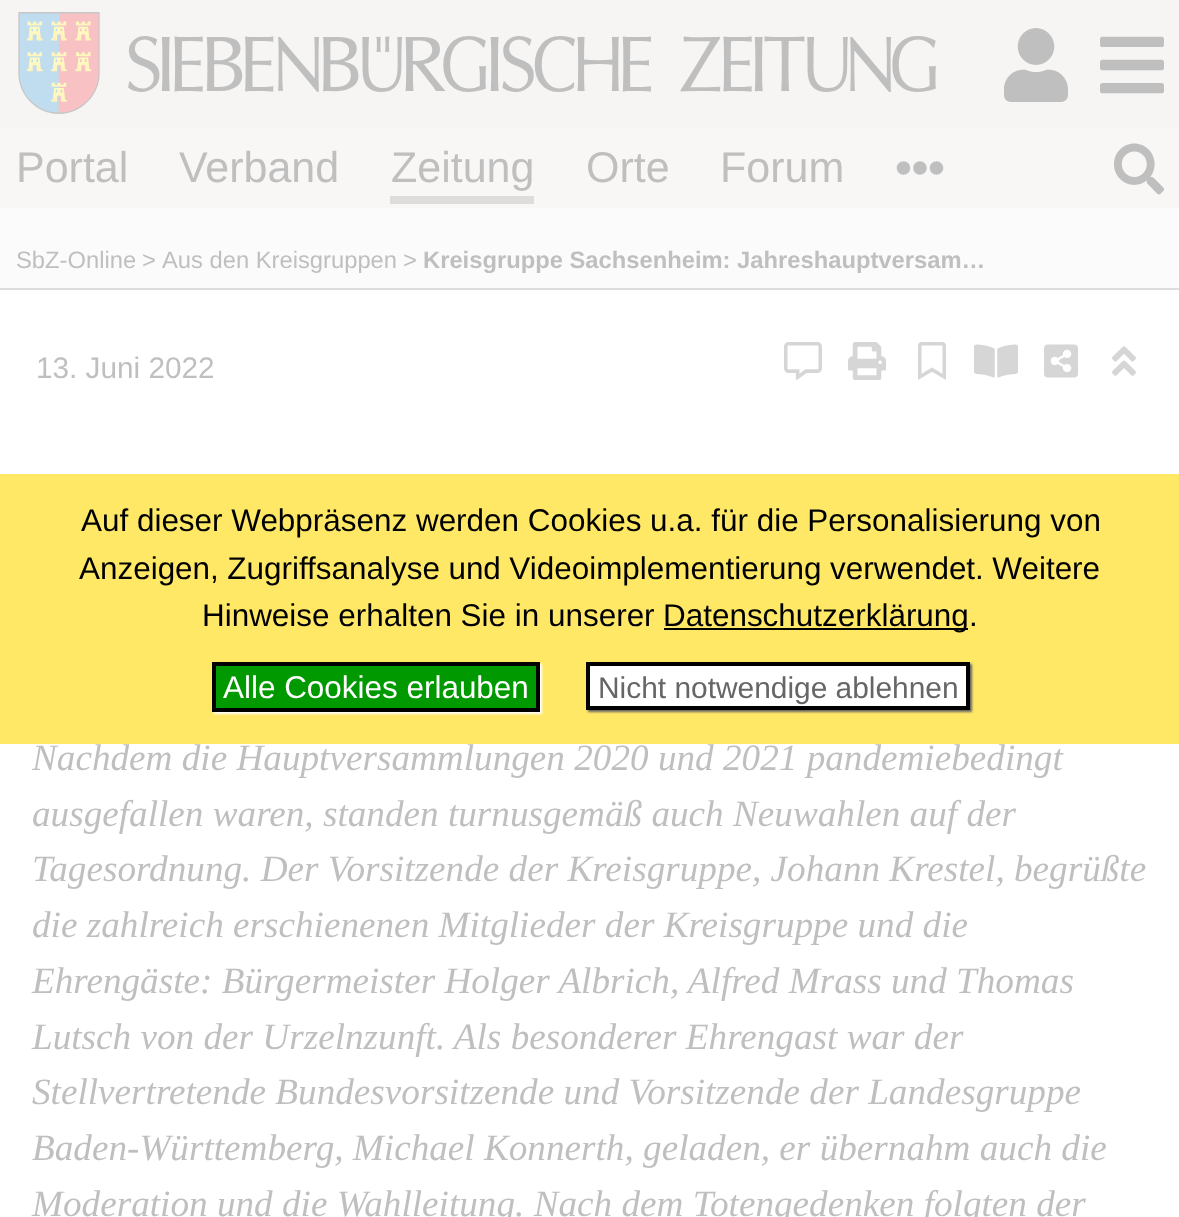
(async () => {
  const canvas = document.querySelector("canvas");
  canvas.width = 1179;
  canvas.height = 1217;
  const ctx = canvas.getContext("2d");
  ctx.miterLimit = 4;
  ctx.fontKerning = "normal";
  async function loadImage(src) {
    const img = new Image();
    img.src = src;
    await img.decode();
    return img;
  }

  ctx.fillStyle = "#ffffff";
  ctx.fillRect(0, 0, 1179, 1217);
  ctx.fillStyle = "#f6f5f3";
  ctx.fillRect(0, 0, 1179, 128);
  ctx.drawImage(await loadImage("img/1.png"), 1100, 36, 64, 58);
  ctx.drawImage(await loadImage("img/2.png"), 18, 12, 82, 102);
  ctx.drawImage(await loadImage("img/3.png"), 128, 36, 808, 56);
  ctx.drawImage(await loadImage("img/4.png"), 1004, 28, 64, 74);
  ctx.fillStyle = "#f9f7f5";
  ctx.fillRect(0, 128, 1179, 80);
  ctx.fillStyle = "#dddddd";
  ctx.fillRect(390, 196, 144, 8);
  ctx.drawImage(await loadImage("img/5.png"), 896, 161, 48, 14);
  ctx.drawImage(await loadImage("img/6.png"), 1114, 143, 50, 52);
  ctx.fillStyle = "#fbfbfb";
  ctx.fillRect(0, 208, 1179, 80);
  ctx.fillStyle = "#dddddd";
  ctx.fillRect(0, 288, 1179, 2);
  ctx.drawImage(await loadImage("img/7.png"), 784, 342, 38, 38);
  ctx.drawImage(await loadImage("img/8.png"), 848, 342, 38, 38);
  ctx.drawImage(await loadImage("img/9.png"), 918, 342, 28, 38);
  ctx.drawImage(await loadImage("img/10.png"), 974, 344, 44, 34);
  ctx.drawImage(await loadImage("img/11.png"), 1044, 344, 34, 34);
  ctx.drawImage(await loadImage("img/12.png"), 1112, 346, 24, 30);
  ctx.fillStyle = "#ffe866";
  ctx.fillRect(0, 474, 1179, 270);
  ctx.fillStyle = "#000000";
  ctx.fillRect(664, 628, 304, 2);
  ctx.fillStyle = "#ffffff";
  ctx.filter = "blur(1px)";
  ctx.beginPath();
  ctx.rect(214, 664, 328, 50);
  ctx.fill();
  ctx.filter = "none";
  ctx.fillStyle = "#009900";
  ctx.beginPath();
  ctx.rect(214, 664, 324, 46);
  ctx.fill();
  ctx.strokeStyle = "#000000";
  ctx.lineWidth = 4;
  ctx.stroke();
  ctx.fillStyle = "#666666";
  ctx.filter = "blur(1px)";
  ctx.beginPath();
  ctx.rect(588, 664, 384, 48);
  ctx.fill();
  ctx.filter = "none";
  ctx.fillStyle = "#ffffff";
  ctx.beginPath();
  ctx.rect(588, 664, 380, 44);
  ctx.fill();
  ctx.stroke();
  ctx.font = "43px Liberation Sans";
  ctx.fillStyle = "#bfbfbf";
  for (const [text, x, y] of [
    ["Portal", 16, 182],
    ["Verband", 179, 182],
    ["Zeitung", 391, 182],
    ["Orte", 586, 182],
    ["Forum", 720, 182],
  ]) {
    ctx.fillText(text, x, y);
  }
  ctx.font = "23.75px Liberation Sans";
  for (const [text, x, y] of [
    ["SbZ-Online", 16, 268],
    [">", 142, 268],
    ["Aus den Kreisgruppen", 162, 268],
    [">", 403, 268],
  ]) {
    ctx.fillText(text, x, y);
  }
  ctx.font = "bold 23.75px Liberation Sans";
  ctx.fillText("Kreisgruppe Sachsenheim: Jahreshauptversam…", 423, 268);
  ctx.font = "29.75px Liberation Sans";
  ctx.fillText("13. Juni 2022", 36, 378);
  ctx.font = "italic 37.2px Liberation Serif";
  for (const [text, x, y] of [
    ["Nachdem die Hauptversammlungen 2020 und 2021 pandemiebedingt", 32, 770],
    ["ausgefallen waren, standen turnusgemäß auch Neuwahlen auf der", 32, 826],
    ["Tagesordnung. Der Vorsitzende der Kreisgruppe, Johann Krestel, begrüßte", 32, 881],
    ["die zahlreich erschienenen Mitglieder der Kreisgruppe und die", 32, 937],
    ["Ehrengäste: Bürgermeister Holger Albrich, Alfred Mrass und Thomas", 32, 993],
    ["Lutsch von der Urzelnzunft. Als besonderer Ehrengast war der", 32, 1049],
    ["Stellvertretende Bundesvorsitzende und Vorsitzende der Landesgruppe", 32, 1104],
    ["Baden-Württemberg, Michael Konnerth, geladen, er übernahm auch die", 32, 1160],
    ["Moderation und die Wahlleitung. Nach dem Totengedenken folgten der", 32, 1216],
  ]) {
    ctx.fillText(text, x, y);
  }
  ctx.font = "31.45px Liberation Sans";
  ctx.fillStyle = "#000000";
  ctx.fillText("Auf dieser Webpräsenz werden Cookies u.a. für die Personalisierung von", 81, 531);
  ctx.wordSpacing = "-0.25px";
  ctx.fillText("Anzeigen, Zugriffsanalyse und Videoimplementierung verwendet. Weitere", 79, 579);
  ctx.wordSpacing = "0px";
  for (const [text, x, y] of [
    ["Hinweise erhalten Sie in unserer", 202, 626],
    ["Datenschutzerklärung", 663, 626],
    [".", 969, 626],
  ]) {
    ctx.fillText(text, x, y);
  }
  ctx.fillStyle = "#ffffff";
  ctx.fillText("Alle Cookies erlauben", 223, 698);
  ctx.font = "29.9px Liberation Sans";
  ctx.fillStyle = "#666666";
  ctx.fillText("Nicht notwendige ablehnen", 598, 698);
})();
